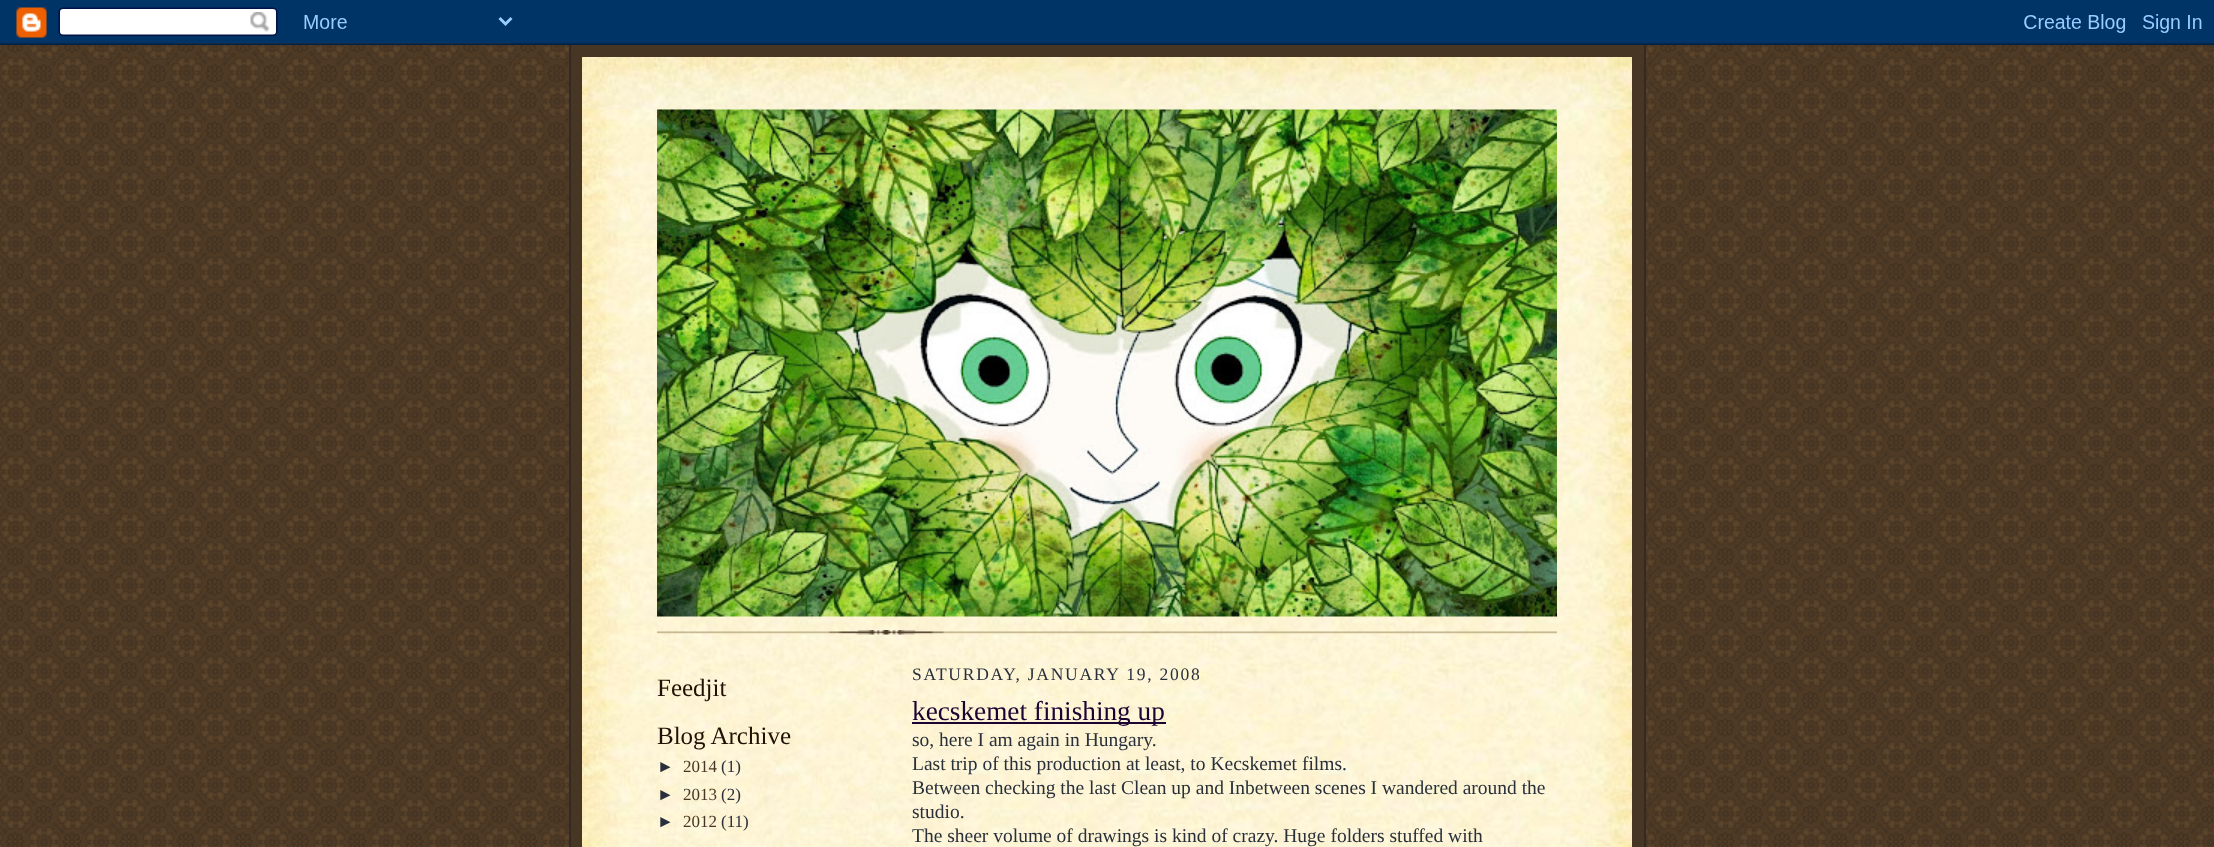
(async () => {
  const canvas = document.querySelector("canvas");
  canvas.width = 2214;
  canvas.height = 847;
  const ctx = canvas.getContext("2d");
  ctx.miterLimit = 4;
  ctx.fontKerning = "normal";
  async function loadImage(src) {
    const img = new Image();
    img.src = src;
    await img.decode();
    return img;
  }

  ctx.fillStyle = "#ffffff";
  ctx.fillRect(0, 0, 2214, 847);
  ctx.drawImage(await loadImage("img/1.png"), 0, 43, 2214, 804);
  ctx.drawImage(await loadImage("img/2.png"), 0, 0, 2214, 45);
  for (const [x, y, w, h, color] of [
    [571, 45, 1073, 802, "#473624"],
    [1644, 45, 2, 802, "#332a24"],
    [569, 45, 2, 802, "#332a24"],
  ]) {
    ctx.fillStyle = color;
    ctx.fillRect(x, y, w, h);
  }
  ctx.drawImage(await loadImage("img/3.png"), 582, 57, 1050, 53);
  ctx.drawImage(await loadImage("img/4.png"), 582, 109, 1050, 738);
  ctx.drawImage(await loadImage("img/5.png"), 657, 630, 900, 5);
  ctx.drawImage(await loadImage("img/6.png"), 657, 109, 900, 508);
  ctx.fillStyle = "#1b0431";
  ctx.fillRect(912, 722, 254, 2);
  ctx.font = "25px Liberation Serif";
  ctx.fillStyle = "#211104";
  ctx.fillText("Feedjit", 657, 696);
  ctx.fillText("Blog Archive", 657, 744);
  ctx.font = "17px Liberation Sans";
  ctx.fillStyle = "#29303b";
  ctx.fillText("►", 657, 772);
  ctx.font = "17px Liberation Serif";
  ctx.fillStyle = "#473624";
  ctx.fillText("2014", 683, 772);
  ctx.fillStyle = "#29303b";
  ctx.fillText("(1)", 721, 772);
  ctx.font = "17px Liberation Sans";
  ctx.fillText("►", 657, 800);
  ctx.font = "17px Liberation Serif";
  ctx.fillStyle = "#473624";
  ctx.fillText("2013", 683, 800);
  ctx.fillStyle = "#29303b";
  ctx.fillText("(2)", 721, 800);
  ctx.font = "17px Liberation Sans";
  ctx.fillText("►", 657, 827);
  ctx.font = "17px Liberation Serif";
  ctx.fillStyle = "#473624";
  ctx.fillText("2012", 683, 827);
  ctx.fillStyle = "#29303b";
  ctx.fillText("(11)", 721, 827);
  ctx.letterSpacing = "1.75px";
  ctx.font = "17.5px Liberation Serif";
  ctx.fillText("SATURDAY, JANUARY 19, 2008", 912, 680);
  ctx.letterSpacing = "0px";
  ctx.font = "27.25px Liberation Serif";
  ctx.fillStyle = "#1b0431";
  ctx.fillText("kecskemet finishing up", 912, 720);
  ctx.font = "19.5px Liberation Serif";
  ctx.fillStyle = "#29303b";
  for (const [text, x, y] of [
    ["so, here I am again in Hungary.", 912, 746],
    ["Last trip of this production at least, to Kecskemet films.", 912, 770],
    ["Between checking the last Clean up and Inbetween scenes I wandered around the", 912, 794],
    ["studio.", 912, 818],
    ["The sheer volume of drawings is kind of crazy. Huge folders stuffed with", 912, 842],
  ]) {
    ctx.fillText(text, x, y);
  }
})();
